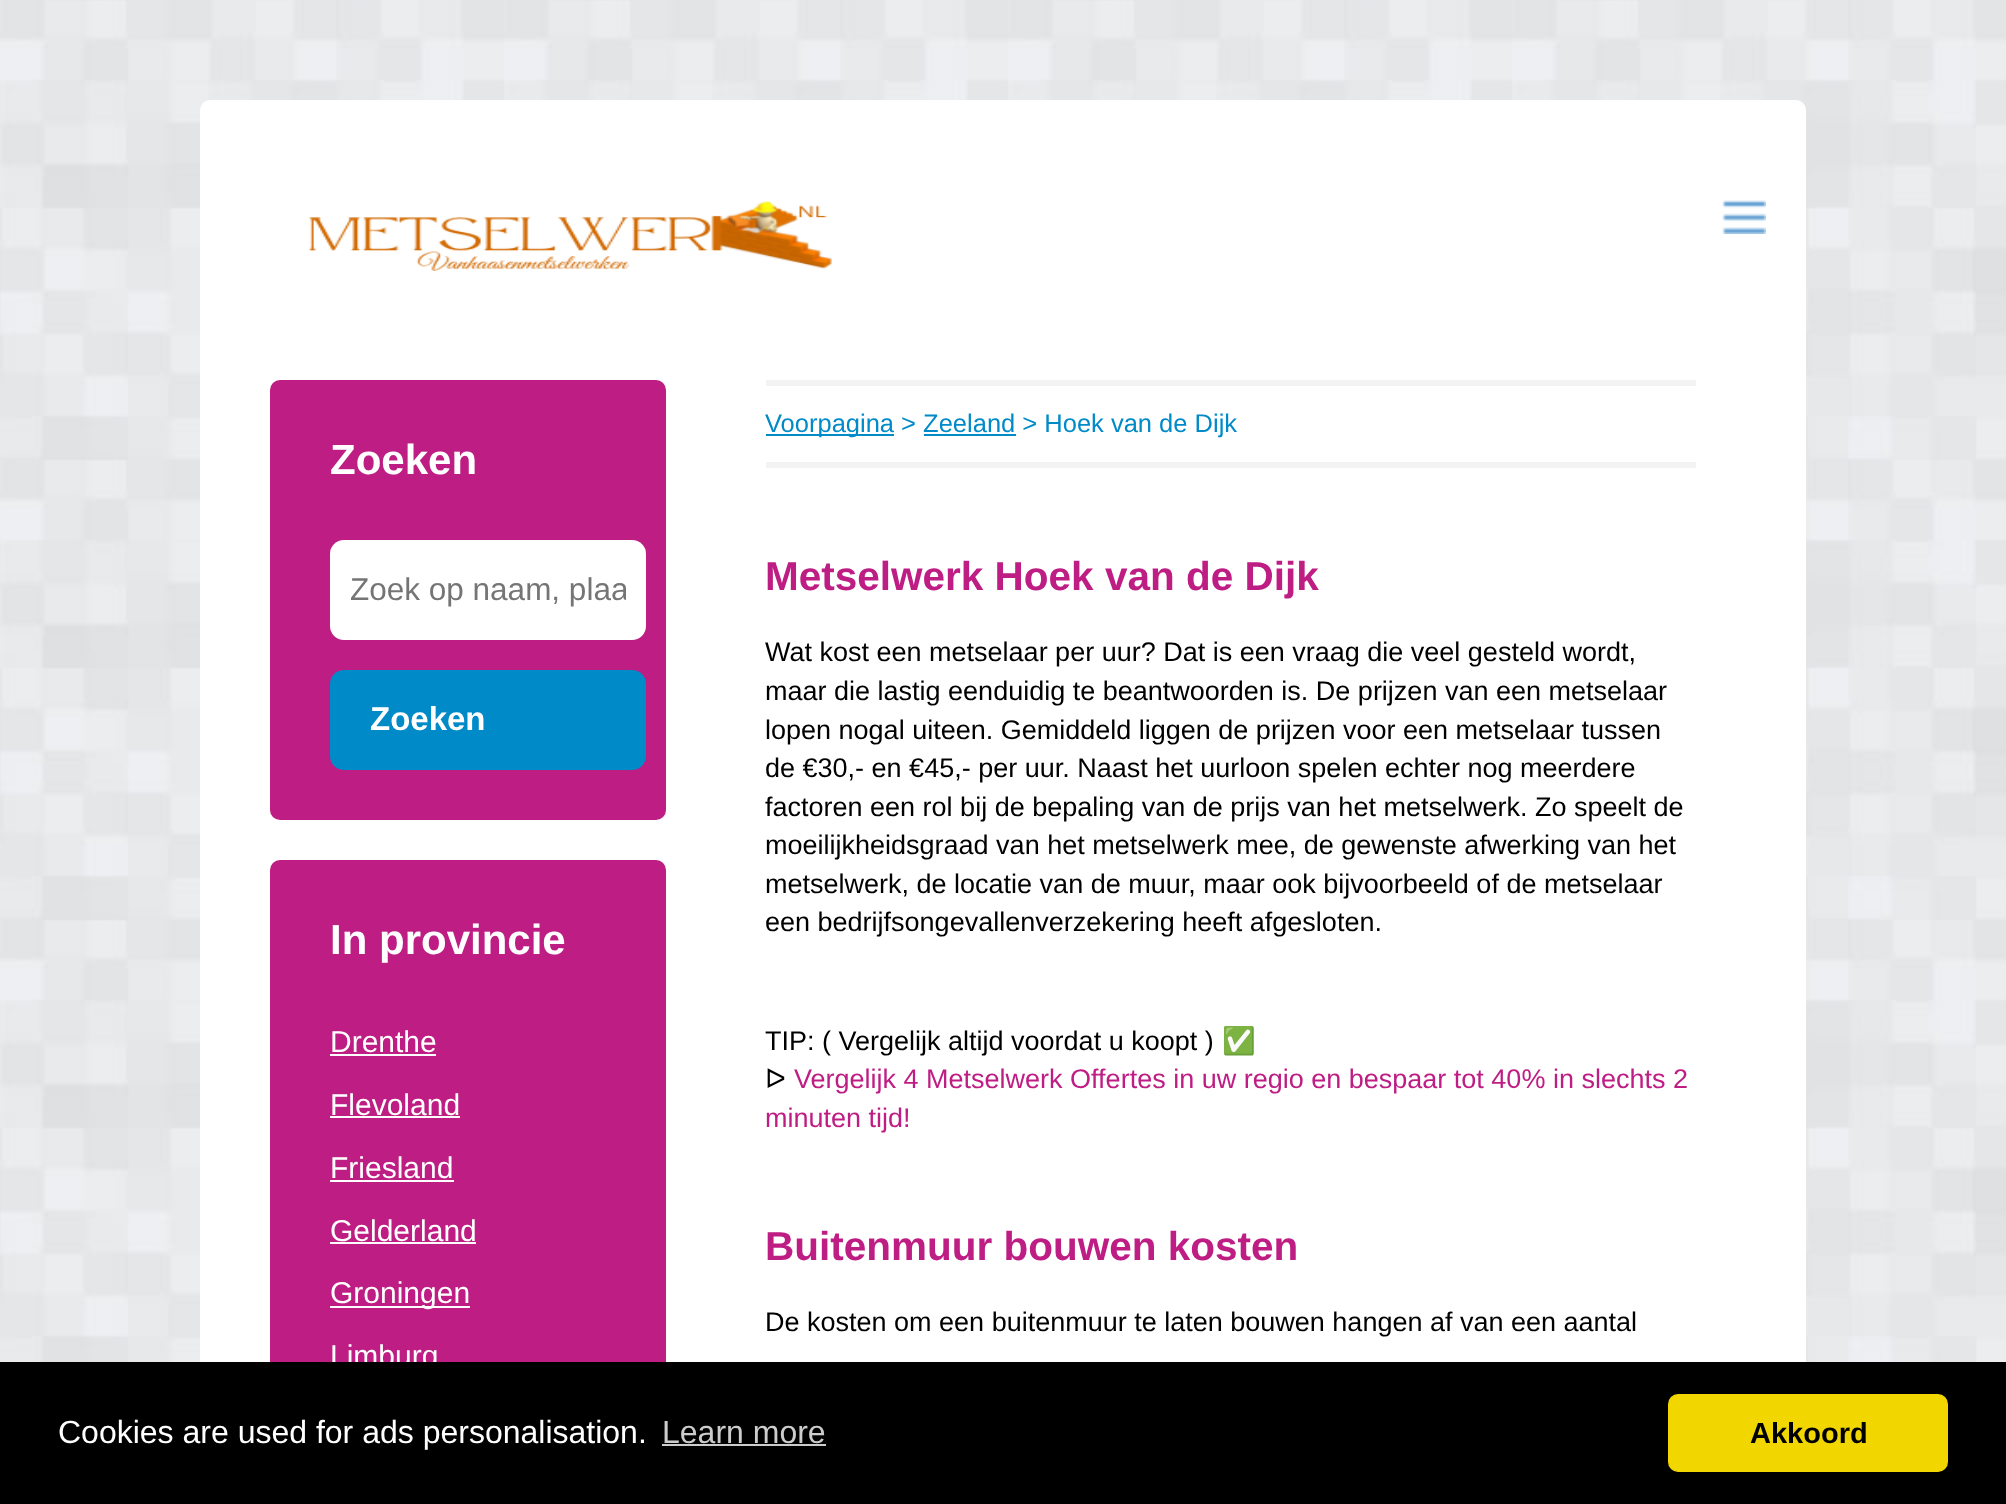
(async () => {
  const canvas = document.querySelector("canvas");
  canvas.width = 2006;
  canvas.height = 1504;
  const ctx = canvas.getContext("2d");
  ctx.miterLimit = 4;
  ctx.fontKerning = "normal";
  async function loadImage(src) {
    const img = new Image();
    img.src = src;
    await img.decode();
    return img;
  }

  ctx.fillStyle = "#ffffff";
  ctx.fillRect(0, 0, 2006, 1504);
  ctx.drawImage(await loadImage("img/1.png"), 0, 0, 2006, 1362);
  ctx.beginPath();
  ctx.roundRect(200, 100, 1606, 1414, 10);
  ctx.fill();
  ctx.drawImage(await loadImage("img/2.png"), 308, 201, 524, 70);
  ctx.drawImage(await loadImage("img/3.png"), 1722, 200, 44, 34);
  ctx.fillStyle = "#be1d84";
  ctx.beginPath();
  ctx.roundRect(270, 380, 396, 440, 10);
  ctx.fill();
  ctx.fillStyle = "#ffffff";
  ctx.beginPath();
  ctx.roundRect(330, 540, 316, 100, 14);
  ctx.fill();
  ctx.fillStyle = "#008ac8";
  ctx.beginPath();
  ctx.roundRect(330, 670, 316, 100, 14);
  ctx.fill();
  ctx.fillStyle = "#be1d84";
  ctx.beginPath();
  ctx.roundRect(270, 860, 396, 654, 10);
  ctx.fill();
  for (const [x, y, w, h, color] of [
    [330, 1054, 106, 2, "#ffffff"],
    [330, 1116, 130, 2, "#ffffff"],
    [330, 1180, 124, 2, "#ffffff"],
    [330, 1242, 146, 2, "#ffffff"],
    [330, 1306, 140, 2, "#ffffff"],
    [766, 380, 930, 6, "#f3f3f3"],
    [766, 462, 930, 6, "#f3f3f3"],
    [766, 434, 128, 2, "#008ac8"],
    [924, 434, 92, 2, "#008ac8"],
  ]) {
    ctx.fillStyle = color;
    ctx.fillRect(x, y, w, h);
  }
  ctx.font = "bold 42px Liberation Sans";
  ctx.fillStyle = "#ffffff";
  ctx.fillText("Zoeken", 330, 474);
  ctx.save();
  ctx.beginPath();
  ctx.rect(350, 572, 276, 36);
  ctx.clip();
  ctx.font = "31.5px Liberation Sans";
  ctx.fillStyle = "#757575";
  ctx.fillText("Zoek op naam, plaa", 350, 600);
  ctx.restore();
  ctx.font = "bold 33px Liberation Sans";
  ctx.fillText("Zoeken", 370, 730);
  ctx.font = "bold 42px Liberation Sans";
  ctx.fillText("In provincie", 330, 954);
  ctx.font = "30px Liberation Sans";
  for (const [text, x, y] of [
    ["Drenthe", 330, 1052],
    ["Flevoland", 330, 1115],
    ["Friesland", 330, 1178],
    ["Gelderland", 330, 1241],
    ["Groningen", 330, 1303],
    ["Limburg", 330, 1366],
  ]) {
    ctx.fillText(text, x, y);
  }
  ctx.font = "25.5px Liberation Sans";
  ctx.fillStyle = "#008ac8";
  ctx.fillText("Voorpagina > Zeeland > Hoek van de Dijk", 765, 432);
  ctx.font = "bold 40.5px Liberation Sans";
  ctx.fillStyle = "#be1d84";
  ctx.fillText("Metselwerk Hoek van de Dijk", 765, 590);
  ctx.font = "27px Liberation Sans";
  ctx.fillStyle = "#000000";
  for (const [text, x, y] of [
    ["Wat kost een metselaar per uur? Dat is een vraag die veel gesteld wordt,", 765, 661],
    ["maar die lastig eenduidig te beantwoorden is. De prijzen van een metselaar", 765, 700],
    ["lopen nogal uiteen. Gemiddeld liggen de prijzen voor een metselaar tussen", 765, 739],
    ["de €30,- en €45,- per uur. Naast het uurloon spelen echter nog meerdere", 765, 777],
    ["factoren een rol bij de bepaling van de prijs van het metselwerk. Zo speelt de", 765, 816],
    ["moeilijkheidsgraad van het metselwerk mee, de gewenste afwerking van het", 765, 854],
    ["metselwerk, de locatie van de muur, maar ook bijvoorbeeld of de metselaar", 765, 893],
    ["een bedrijfsongevallenverzekering heeft afgesloten.", 765, 931],
    ["TIP: ( Vergelijk altijd voordat u koopt )", 765, 1050],
  ]) {
    ctx.fillText(text, x, y);
  }
  ctx.font = "27px Noto Color Emoji";
  ctx.fillText("✅", 1222, 1050);
  ctx.font = "27px DejaVu Sans";
  ctx.fillText("ᐅ", 765, 1088);
  ctx.font = "27px Liberation Sans";
  ctx.fillStyle = "#be1d84";
  ctx.fillText("Vergelijk 4 Metselwerk Offertes in uw regio en bespaar tot 40% in slechts 2", 794, 1088);
  ctx.fillText("minuten tijd!", 765, 1127);
  ctx.font = "bold 40.5px Liberation Sans";
  ctx.fillText("Buitenmuur bouwen kosten", 765, 1260);
  ctx.font = "27px Liberation Sans";
  ctx.fillStyle = "#000000";
  ctx.fillText("De kosten om een buitenmuur te laten bouwen hangen af van een aantal", 765, 1331);
  ctx.fillRect(0, 1362, 2006, 142);
  ctx.font = "32px Liberation Sans";
  ctx.fillStyle = "#ffffff";
  ctx.fillText("Cookies are used for ads personalisation.", 58, 1443);
  ctx.fillStyle = "#cccccc";
  ctx.fillText("Learn more", 662, 1443);
  ctx.fillRect(662, 1444, 164, 2);
  ctx.fillStyle = "#f1d600";
  ctx.beginPath();
  ctx.roundRect(1668, 1394, 280, 78, 10);
  ctx.fill();
  ctx.font = "bold 29px Liberation Sans";
  ctx.fillStyle = "#000000";
  ctx.fillText("Akkoord", 1750, 1443);
})();
